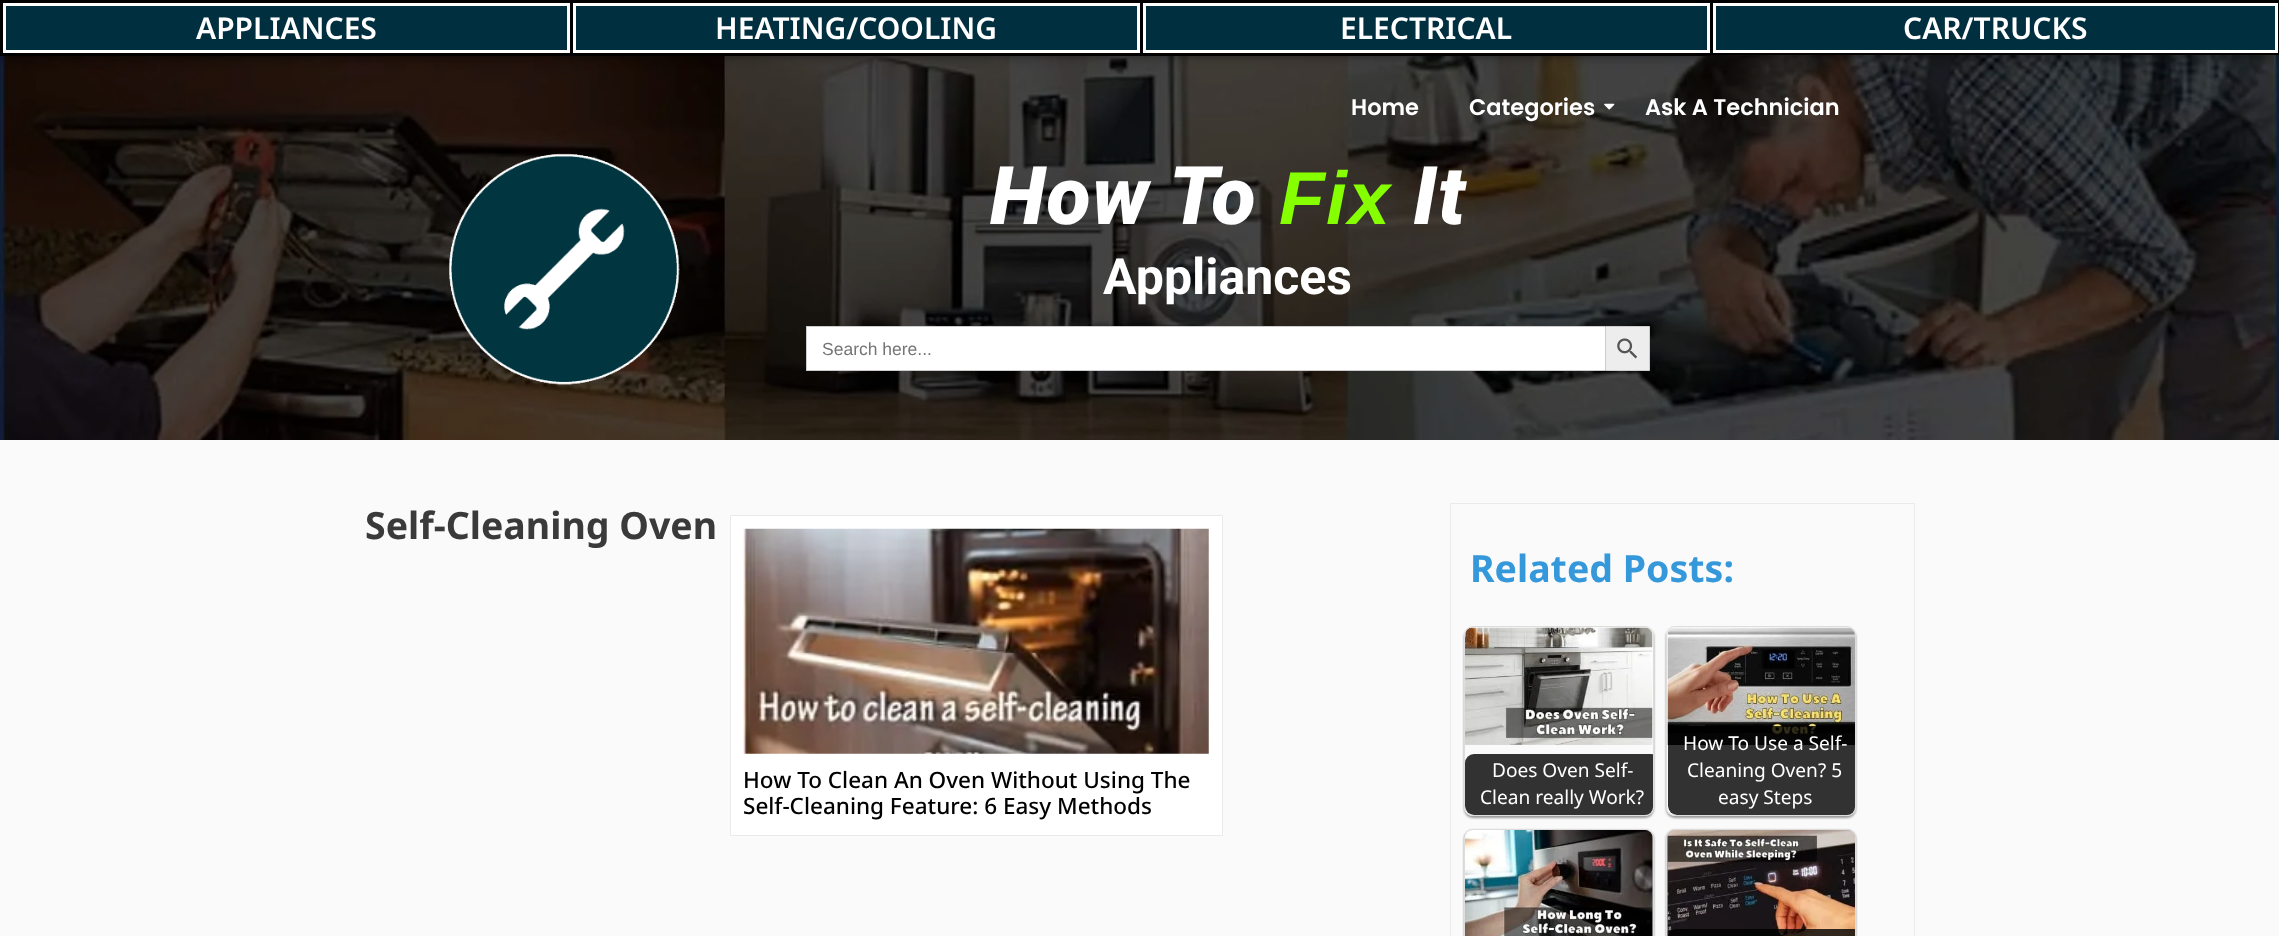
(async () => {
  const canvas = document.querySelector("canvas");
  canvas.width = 2279;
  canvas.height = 936;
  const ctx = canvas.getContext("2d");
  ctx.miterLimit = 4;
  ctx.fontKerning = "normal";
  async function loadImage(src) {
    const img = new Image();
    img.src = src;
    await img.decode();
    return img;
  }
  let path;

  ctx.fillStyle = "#fafafa";
  ctx.fillRect(0, 0, 2279, 936);
  ctx.drawImage(await loadImage("img/1.png"), 0, 55, 2279, 385);
  ctx.fillStyle = "rgba(0, 0, 0, 0.5)";
  ctx.filter = "blur(6px)";
  ctx.beginPath();
  ctx.rect(0, 0, 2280, 55);
  ctx.fill();
  ctx.filter = "none";
  for (const [x, y, w, h, color] of [
    [0, 0, 1710, 3, "#000000"],
    [0, 53, 1710, 3, "#000000"],
    [0, 0, 3, 55, "#000000"],
  ]) {
    ctx.fillStyle = color;
    ctx.fillRect(x, y, w, h);
  }
  ctx.fillStyle = "#002f3f";
  ctx.beginPath();
  ctx.rect(4.5, 4.5, 564, 47);
  ctx.fill();
  ctx.strokeStyle = "#ffffff";
  ctx.lineWidth = 3;
  ctx.stroke();
  ctx.fillStyle = "#000000";
  ctx.fillRect(570, 0, 3, 55);
  ctx.fillStyle = "#002f3f";
  ctx.beginPath();
  ctx.rect(574.5, 4.5, 564, 47);
  ctx.fill();
  ctx.stroke();
  ctx.fillStyle = "#000000";
  ctx.fillRect(1140, 0, 3, 55);
  ctx.fillStyle = "#002f3f";
  ctx.beginPath();
  ctx.rect(1144.5, 4.5, 564, 47);
  ctx.fill();
  ctx.stroke();
  ctx.fillRect(1716, 6, 559, 44);
  ctx.strokeStyle = "#000000";
  ctx.strokeRect(1711.5, 1.5, 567, 52);
  ctx.strokeStyle = "#ffffff";
  ctx.strokeRect(1714.5, 4.5, 562, 47);
  ctx.drawImage(await loadImage("img/2.png"), 1604, 103, 11, 7);
  ctx.drawImage(await loadImage("img/3.png"), 449, 153, 231, 232);
  for (const [x, y, w, h, color] of [
    [807, 327, 798, 43, "#ffffff"],
    [806, 326, 799, 1, "#cccccc"],
    [806, 370, 799, 1, "#cccccc"],
    [806, 326, 1, 45, "#cccccc"],
  ]) {
    ctx.fillStyle = color;
    ctx.fillRect(x, y, w, h);
  }
  ctx.fillStyle = "#ededed";
  ctx.beginPath();
  ctx.rect(1605.5, 326.5, 44, 44);
  ctx.fill();
  ctx.strokeStyle = "#cccccc";
  ctx.lineWidth = 1;
  ctx.stroke();
  ctx.drawImage(await loadImage("img/4.png"), 1617, 338, 21, 21);
  ctx.fillStyle = "#ffffff";
  ctx.beginPath();
  ctx.rect(730.5, 515.5, 492, 320);
  ctx.fill();
  ctx.strokeStyle = "#e8eaed";
  ctx.stroke();
  ctx.drawImage(await loadImage("img/5.png"), 743, 528, 466, 226);
  ctx.strokeRect(1450.5, 503.5, 464, 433);
  ctx.save();
  path = new Path2D("M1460 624H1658V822H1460ZM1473 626H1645C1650 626 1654 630 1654 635V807C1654 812 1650 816 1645 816H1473C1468 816 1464 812 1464 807V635C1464 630 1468 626 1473 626Z");
  ctx.clip(path, "evenodd");
  ctx.fillStyle = "rgba(0, 0, 0, 0.4)";
  ctx.filter = "blur(1px)";
  ctx.beginPath();
  ctx.roundRect(1464, 628, 190, 190, 9);
  ctx.fill();
  ctx.filter = "none";
  ctx.restore();
  ctx.beginPath();
  ctx.roundRect(1464.5, 626.5, 189, 189, 8.5);
  ctx.strokeStyle = "#dddddd";
  ctx.stroke();
  ctx.drawImage(await loadImage("img/6.png"), 1465, 627, 188, 118);
  ctx.save();
  ctx.beginPath();
  ctx.roundRect(1465, 628, 188, 187, 8);
  ctx.clip();
  ctx.fillStyle = "rgba(0, 0, 0, 0.8)";
  ctx.beginPath();
  ctx.roundRect(1465, 754, 195, 61, 9);
  ctx.fill();
  ctx.restore();
  ctx.save();
  path = new Path2D("M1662 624H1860V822H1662ZM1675 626H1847C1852 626 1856 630 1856 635V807C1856 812 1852 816 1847 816H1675C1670 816 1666 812 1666 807V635C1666 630 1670 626 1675 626Z");
  ctx.clip(path, "evenodd");
  ctx.fillStyle = "rgba(0, 0, 0, 0.4)";
  ctx.filter = "blur(1px)";
  ctx.beginPath();
  ctx.roundRect(1666, 628, 190, 190, 9);
  ctx.fill();
  ctx.filter = "none";
  ctx.restore();
  ctx.beginPath();
  ctx.roundRect(1666.5, 626.5, 189, 189, 8.5);
  ctx.stroke();
  ctx.drawImage(await loadImage("img/7.png"), 1667, 627, 188, 118);
  ctx.save();
  ctx.beginPath();
  ctx.roundRect(1668, 628, 187, 187, 8);
  ctx.clip();
  ctx.fillStyle = "rgba(0, 0, 0, 0.8)";
  ctx.beginPath();
  ctx.roundRect(1668, 726, 195, 89, 9);
  ctx.fill();
  ctx.restore();
  ctx.fillStyle = "rgba(0, 0, 0, 0.4)";
  ctx.filter = "blur(1px)";
  ctx.beginPath();
  ctx.roundRect(1464, 830, 190, 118, 9);
  ctx.fill();
  ctx.filter = "none";
  ctx.beginPath();
  ctx.roundRect(1464.5, 829.5, 189, 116, 8.5);
  ctx.stroke();
  ctx.drawImage(await loadImage("img/8.png"), 1465, 830, 188, 106);
  ctx.filter = "blur(1px)";
  ctx.beginPath();
  ctx.roundRect(1666, 830, 190, 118, 9);
  ctx.fill();
  ctx.filter = "none";
  ctx.beginPath();
  ctx.roundRect(1666.5, 829.5, 189, 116, 8.5);
  ctx.stroke();
  ctx.drawImage(await loadImage("img/9.png"), 1667, 830, 188, 106);
  ctx.save();
  ctx.beginPath();
  ctx.rect(1668, 830, 187, 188);
  ctx.clip();
  ctx.fillStyle = "rgba(0, 0, 0, 0.8)";
  ctx.beginPath();
  ctx.roundRect(1668, 929, 195, 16, 9);
  ctx.fill();
  ctx.restore();
  ctx.font = "600 30px Noto Sans";
  ctx.fillStyle = "#ffffff";
  for (const [text, x, y] of [
    ["APPLIANCES", 196, 39],
    ["HEATING/COOLING", 715, 39],
    ["ELECTRICAL", 1340, 39],
    ["CAR/TRUCKS", 1903, 39],
  ]) {
    ctx.fillText(text, x, y);
  }
  ctx.font = "600 22.5px Poppins";
  for (const [text, x, y] of [
    ["Home", 1351, 115],
    ["Categories", 1469, 115],
    ["Ask A Technician", 1645, 115],
  ]) {
    ctx.fillText(text, x, y);
  }
  ctx.letterSpacing = "1.25px";
  ctx.font = "italic 900 81px Roboto";
  ctx.fillText("How To", 990, 224);
  ctx.font = "italic bold 75px Liberation Sans";
  ctx.fillStyle = "#86ff00";
  ctx.fillText("Fix", 1279, 224);
  ctx.font = "italic 900 81px Roboto";
  ctx.fillStyle = "#ffffff";
  ctx.fillText("It", 1413, 224);
  ctx.letterSpacing = "0px";
  ctx.font = "bold 50px Roboto";
  ctx.fillText("Appliances", 1103, 294);
  ctx.font = "17.5px Liberation Sans";
  ctx.fillStyle = "#757575";
  ctx.fillText("Search here...", 822, 355);
  ctx.font = "bold 37.5px Noto Sans";
  ctx.fillStyle = "#3a3a3a";
  ctx.fillText("Self-Cleaning Oven", 365, 539);
  ctx.font = "500 22.5px Noto Sans";
  ctx.fillStyle = "#000000";
  ctx.fillText("How To Clean An Oven Without Using The", 743, 788);
  ctx.fillText("Self-Cleaning Feature: 6 Easy Methods", 743, 814);
  ctx.font = "bold 37.5px Noto Sans";
  ctx.fillStyle = "#3498db";
  ctx.fillText("Related Posts:", 1470, 582);
  ctx.font = "19.1px Noto Sans";
  ctx.fillStyle = "#ffffff";
  for (const [text, x, y] of [
    ["Does Oven Self-", 1492, 777],
    ["Clean really Work?", 1480, 804],
    ["How To Use a Self-", 1683, 750],
    ["Cleaning Oven? 5", 1687, 777],
    ["easy Steps", 1718, 804],
  ]) {
    ctx.fillText(text, x, y);
  }
})();
